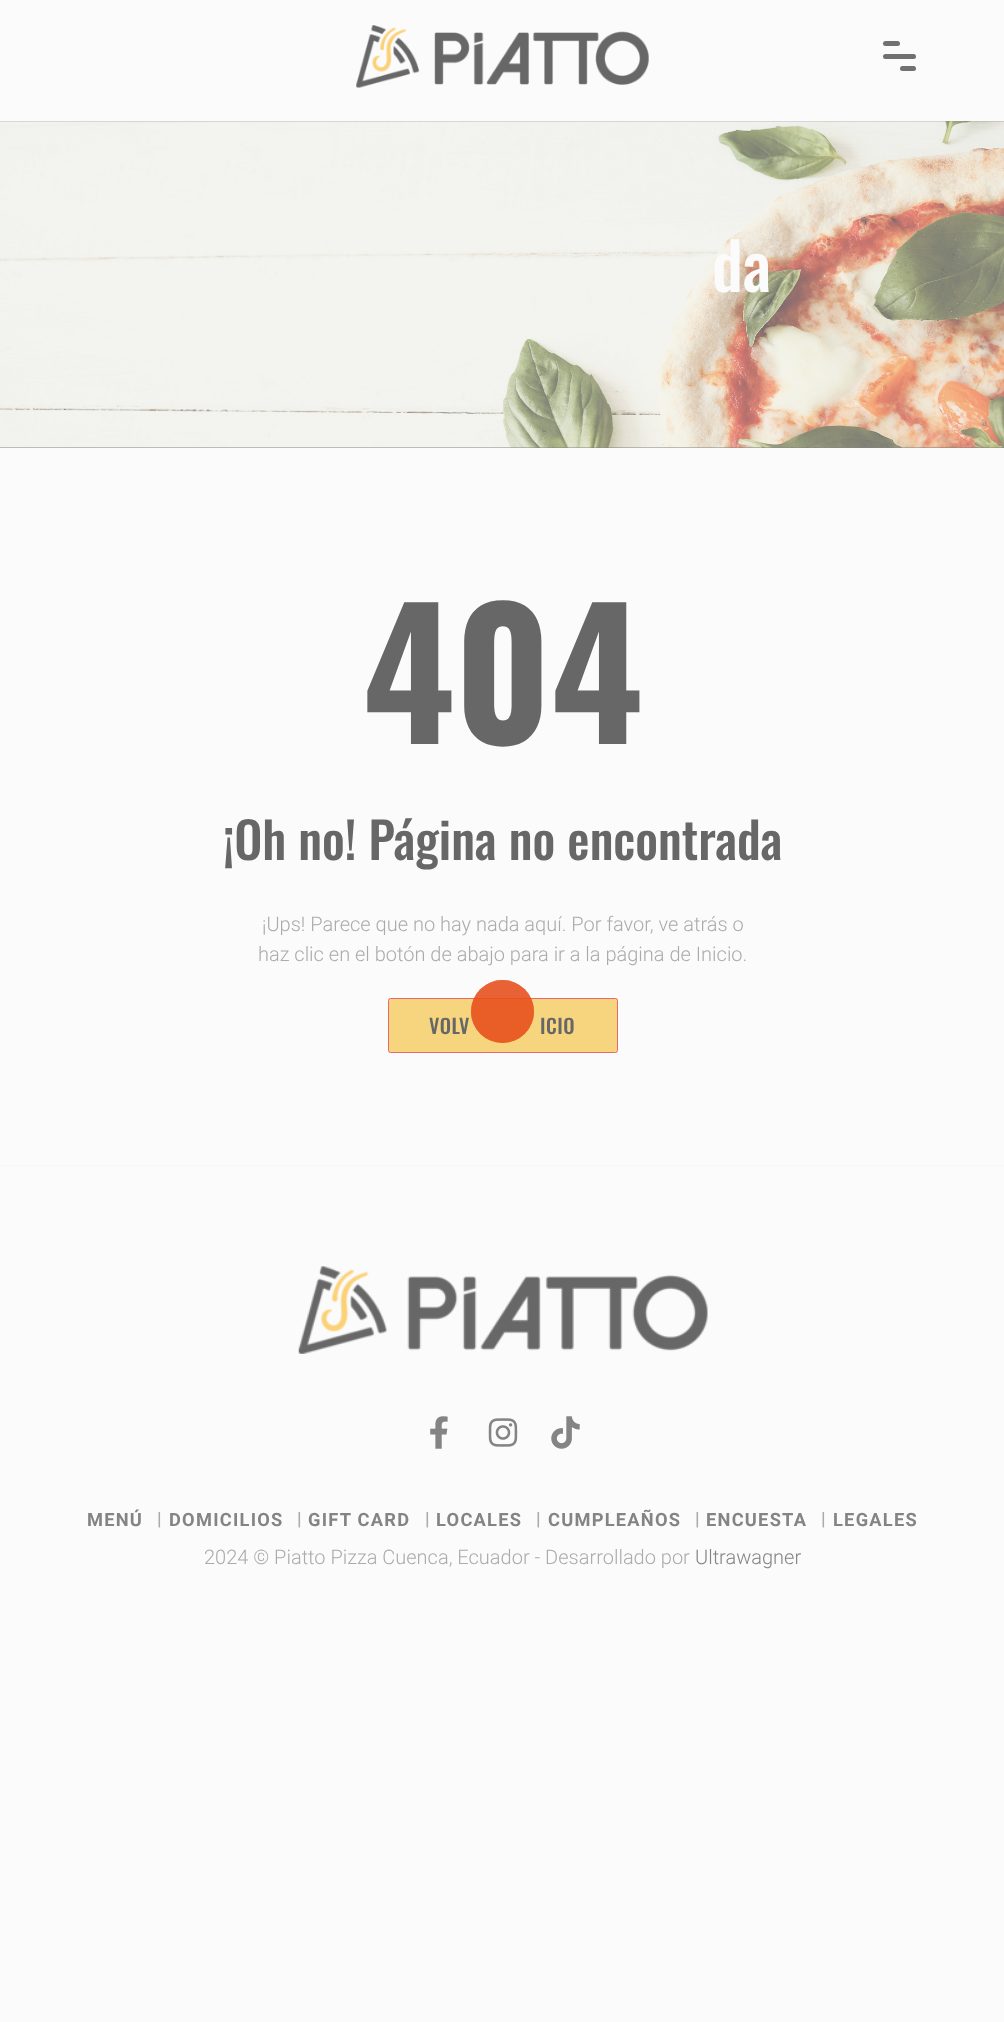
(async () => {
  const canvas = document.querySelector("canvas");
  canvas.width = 1004;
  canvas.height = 2022;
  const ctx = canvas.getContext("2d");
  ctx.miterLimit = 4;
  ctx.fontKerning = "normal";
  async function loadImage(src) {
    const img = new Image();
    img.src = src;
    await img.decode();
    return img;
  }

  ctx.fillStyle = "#fbfbfb";
  ctx.fillRect(0, 0, 1004, 2022);
  ctx.drawImage(await loadImage("img/1.png"), 356, 25, 293, 63);
  ctx.fillStyle = "#717171";
  ctx.beginPath();
  ctx.roundRect(883, 41, 17, 5, 2.5);
  ctx.fill();
  ctx.beginPath();
  ctx.roundRect(883, 54, 33, 5, 2.5);
  ctx.fill();
  ctx.beginPath();
  ctx.roundRect(900, 66, 16, 5, 2.5);
  ctx.fill();
  ctx.fillStyle = "#848484";
  ctx.fillRect(0, 121, 1004, 327);
  ctx.drawImage(await loadImage("img/2.png"), 0, 121, 1004, 327);
  ctx.fillStyle = "#f6d57e";
  ctx.beginPath();
  ctx.roundRect(388.5, 998.5, 229, 54, 2);
  ctx.fill();
  ctx.strokeStyle = "#eb676f";
  ctx.stroke();
  ctx.fillStyle = "#f6f7f8";
  ctx.fillRect(0, 1165, 1004, 1);
  ctx.drawImage(await loadImage("img/3.png"), 298, 1266, 410, 88);
  ctx.drawImage(await loadImage("img/4.png"), 430, 1416, 18, 33);
  ctx.drawImage(await loadImage("img/5.png"), 488, 1418, 30, 29);
  ctx.drawImage(await loadImage("img/6.png"), 551, 1416, 29, 33);
  ctx.fillStyle = "rgba(232, 78, 29, 0.42)";
  ctx.beginPath();
  ctx.arc(502.5, 1011.5, 31.5, 0, Math.PI * 2);
  ctx.fill();
  ctx.beginPath();
  ctx.arc(502.5, 1011.5, 31.5, 0, Math.PI * 2);
  ctx.fill();
  ctx.beginPath();
  ctx.arc(502.5, 1011.5, 31.5, 0, Math.PI * 2);
  ctx.fill();
  ctx.beginPath();
  ctx.arc(502.5, 1011.5, 31.5, 0, Math.PI * 2);
  ctx.fill();
  ctx.font = "500 65px Oswald";
  ctx.fillStyle = "#fbfbfb";
  ctx.fillText("da", 712, 292);
  ctx.font = "bold 175px Oswald";
  ctx.fillStyle = "#676767";
  ctx.fillText("404", 363, 744);
  ctx.font = "500 50px Oswald";
  ctx.fillText("¡Oh no! Página no encontrada", 223, 860);
  ctx.font = "300 20px Roboto";
  ctx.fillStyle = "#ababab";
  ctx.fillText("¡Ups! Parece que no hay nada aquí. Por favor, ve atrás o", 262, 931);
  ctx.fillText("haz clic en el botón de abajo para ir a la página de Inicio.", 258, 961);
  ctx.letterSpacing = "0.5px";
  ctx.font = "500 20px Oswald";
  ctx.fillStyle = "#676767";
  ctx.fillText("VOLV", 429, 1034);
  ctx.fillText("ICIO", 540, 1034);
  ctx.letterSpacing = "1.25px";
  ctx.font = "bold 18.25px Roboto";
  ctx.fillStyle = "#848484";
  ctx.fillText("MENÚ", 87, 1526);
  ctx.fillStyle = "#ababab";
  ctx.fillText("|", 157, 1525);
  ctx.fillStyle = "#848484";
  ctx.fillText("DOMICILIOS", 169, 1526);
  ctx.fillStyle = "#ababab";
  ctx.fillText("|", 297, 1525);
  ctx.fillStyle = "#848484";
  ctx.fillText("GIFT CARD", 308, 1526);
  ctx.fillStyle = "#ababab";
  ctx.fillText("|", 425, 1525);
  ctx.fillStyle = "#848484";
  ctx.fillText("LOCALES", 436, 1526);
  ctx.fillStyle = "#ababab";
  ctx.fillText("|", 536, 1525);
  ctx.fillStyle = "#848484";
  ctx.fillText("CUMPLEAÑOS", 548, 1526);
  ctx.fillStyle = "#ababab";
  ctx.fillText("|", 695, 1525);
  ctx.fillStyle = "#848484";
  ctx.fillText("ENCUESTA", 706, 1526);
  ctx.fillStyle = "#ababab";
  ctx.fillText("|", 821, 1525);
  ctx.fillStyle = "#848484";
  ctx.fillText("LEGALES", 833, 1526);
  ctx.letterSpacing = "0px";
  ctx.font = "300 20px Roboto";
  ctx.fillStyle = "#ababab";
  ctx.fillText("2024 © Piatto Pizza Cuenca, Ecuador - Desarrollado por", 204, 1564);
  ctx.fillStyle = "#848484";
  ctx.fillText("Ultrawagner", 695, 1564);
})();
